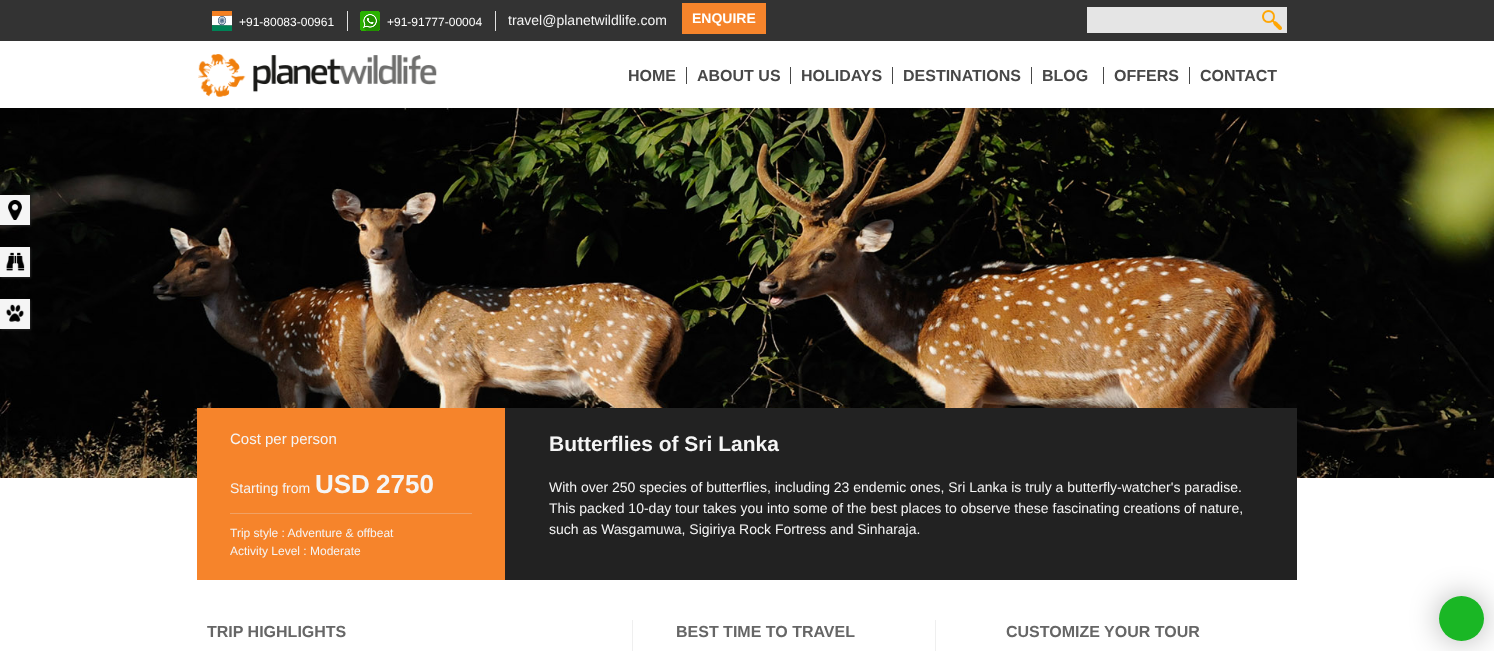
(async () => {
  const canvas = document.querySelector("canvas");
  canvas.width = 1494;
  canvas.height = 651;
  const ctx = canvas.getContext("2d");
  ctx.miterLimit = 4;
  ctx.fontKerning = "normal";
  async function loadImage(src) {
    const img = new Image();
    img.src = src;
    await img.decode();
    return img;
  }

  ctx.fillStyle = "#ffffff";
  ctx.fillRect(0, 0, 1494, 651);
  ctx.fillStyle = "#333333";
  ctx.fillRect(0, 0, 1494, 41);
  ctx.drawImage(await loadImage("img/1.png"), 212, 11, 20, 20);
  ctx.fillStyle = "#e1e1e1";
  ctx.fillRect(347, 11, 1, 20);
  ctx.drawImage(await loadImage("img/2.png"), 360, 11, 20, 20);
  for (const [x, y, w, h, color] of [
    [495, 11, 1, 20, "#e1e1e1"],
    [682, 3, 84, 31, "#f6842b"],
    [1087, 7, 200, 26, "#e5e5e5"],
  ]) {
    ctx.fillStyle = color;
    ctx.fillRect(x, y, w, h);
  }
  ctx.drawImage(await loadImage("img/3.png"), 1262, 10, 20, 20);
  ctx.drawImage(await loadImage("img/4.png"), 198, 54, 239, 43);
  for (const [x, y, w, h, color] of [
    [686, 67, 1, 17, "#484848"],
    [790, 67, 1, 17, "#484848"],
    [892, 67, 1, 17, "#484848"],
    [1031, 67, 1, 17, "#484848"],
    [1103, 67, 1, 17, "#484848"],
    [1189, 67, 1, 17, "#484848"],
  ]) {
    ctx.fillStyle = color;
    ctx.fillRect(x, y, w, h);
  }
  ctx.drawImage(await loadImage("img/8.png"), 0, 108, 1494, 370);
  ctx.fillStyle = "#222222";
  ctx.filter = "blur(1px)";
  ctx.beginPath();
  ctx.rect(1, 196, 30, 30);
  ctx.fill();
  ctx.filter = "none";
  ctx.fillStyle = "#f5f5f5";
  ctx.fillRect(0, 195, 30, 30);
  ctx.drawImage(await loadImage("img/5.png"), 8, 200, 14, 20);
  ctx.fillStyle = "#222222";
  ctx.filter = "blur(1px)";
  ctx.beginPath();
  ctx.rect(1, 248, 30, 30);
  ctx.fill();
  ctx.filter = "none";
  ctx.fillStyle = "#f5f5f5";
  ctx.fillRect(0, 247, 30, 30);
  ctx.drawImage(await loadImage("img/6.png"), 6, 252, 19, 19);
  ctx.fillStyle = "#222222";
  ctx.filter = "blur(1px)";
  ctx.beginPath();
  ctx.rect(1, 300, 30, 30);
  ctx.fill();
  ctx.filter = "none";
  ctx.fillStyle = "#f5f5f5";
  ctx.fillRect(0, 299, 30, 30);
  ctx.drawImage(await loadImage("img/7.png"), 6, 304, 18, 18);
  for (const [x, y, w, h, color] of [
    [197, 408, 308, 172, "#f6842b"],
    [230, 513, 242, 1, "#f1a163"],
    [505, 408, 792, 172, "#222222"],
    [935, 620, 1, 31, "#efefef"],
    [632, 620, 1, 31, "#efefef"],
  ]) {
    ctx.fillStyle = color;
    ctx.fillRect(x, y, w, h);
  }
  ctx.fillStyle = "rgba(0, 0, 0, 0.3)";
  ctx.filter = "blur(15px)";
  ctx.beginPath();
  ctx.roundRect(1439, 596, 45, 45, 22.5);
  ctx.fill();
  ctx.filter = "none";
  ctx.fillStyle = "#1ab725";
  ctx.beginPath();
  ctx.arc(1461.5, 618.5, 22.5, 0, Math.PI * 2);
  ctx.fill();
  ctx.font = "12px Liberation Sans";
  ctx.fillStyle = "#ffffff";
  ctx.fillText("+91-80083-00961", 239, 26);
  ctx.fillText("+91-91777-00004", 387, 26);
  ctx.font = "14px Liberation Sans";
  ctx.fillStyle = "#f5f5f5";
  ctx.fillText("travel@planetwildlife.com", 508, 25);
  ctx.font = "bold 14px Liberation Sans";
  ctx.fillStyle = "#ffffff";
  ctx.fillText("ENQUIRE", 692, 23);
  ctx.font = "bold 16px Liberation Sans";
  ctx.fillStyle = "#484848";
  for (const [text, x, y] of [
    ["HOME", 628, 81],
    ["ABOUT US", 697, 81],
    ["HOLIDAYS", 801, 81],
    ["DESTINATIONS", 903, 81],
    ["BLOG", 1042, 81],
    ["OFFERS", 1114, 81],
    ["CONTACT", 1200, 81],
  ]) {
    ctx.fillText(text, x, y);
  }
  ctx.font = "15px Liberation Sans";
  ctx.fillStyle = "#f5f5f5";
  ctx.fillText("Cost per person", 230, 444);
  ctx.font = "14px Liberation Sans";
  ctx.fillText("Starting from", 230, 493);
  ctx.font = "bold 26px Liberation Sans";
  ctx.fillText("USD", 315, 493);
  ctx.fillText("2750", 376, 493);
  ctx.font = "12px Liberation Sans";
  ctx.fillText("Trip style : Adventure & offbeat", 230, 537);
  ctx.fillText("Activity Level : Moderate", 230, 555);
  ctx.font = "bold 21px Liberation Sans";
  ctx.fillText("Butterflies of Sri Lanka", 549, 451);
  ctx.font = "14px Liberation Sans";
  for (const [text, x, y] of [
    ["With over 250 species of butterflies, including 23 endemic ones, Sri Lanka is truly a butterfly-watcher's paradise.", 549, 492],
    ["This packed 10-day tour takes you into some of the best places to observe these fascinating creations of nature,", 549, 513],
    ["such as Wasgamuwa, Sigiriya Rock Fortress and Sinharaja.", 549, 534],
  ]) {
    ctx.fillText(text, x, y);
  }
  ctx.font = "bold 16px Liberation Sans";
  ctx.fillStyle = "#666666";
  for (const [text, x, y] of [
    ["TRIP HIGHLIGHTS", 207, 637],
    ["BEST TIME TO TRAVEL", 676, 637],
    ["CUSTOMIZE YOUR TOUR", 1006, 637],
  ]) {
    ctx.fillText(text, x, y);
  }
})();
